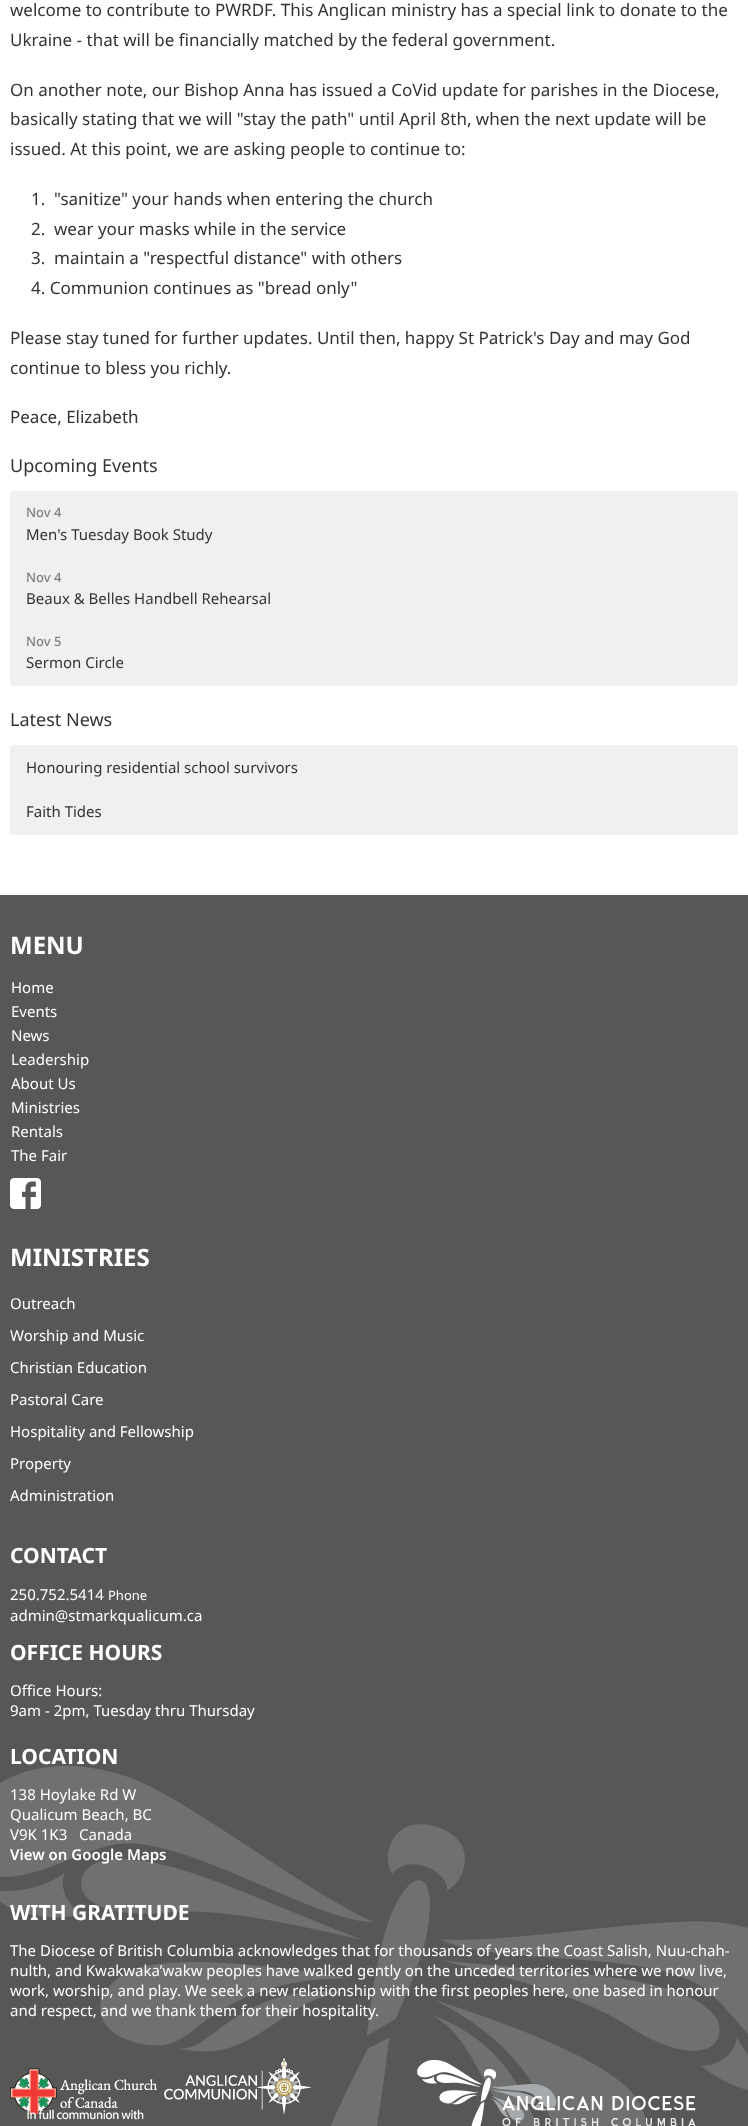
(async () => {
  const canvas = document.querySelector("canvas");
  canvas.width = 748;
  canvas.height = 2126;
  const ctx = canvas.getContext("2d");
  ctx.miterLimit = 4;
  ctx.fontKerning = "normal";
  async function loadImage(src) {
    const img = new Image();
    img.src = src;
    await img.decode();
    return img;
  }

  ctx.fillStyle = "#ffffff";
  ctx.fillRect(0, 0, 748, 2126);
  ctx.fillStyle = "#f0f0f0";
  ctx.beginPath();
  ctx.roundRect(10, 491, 728, 66, [4, 4, 0, 0]);
  ctx.fill();
  ctx.fillRect(10, 557, 728, 63);
  ctx.beginPath();
  ctx.roundRect(10, 620, 728, 66, [0, 0, 4, 4]);
  ctx.fill();
  ctx.beginPath();
  ctx.roundRect(10, 745, 728, 45, [4, 4, 0, 0]);
  ctx.fill();
  ctx.beginPath();
  ctx.roundRect(10, 789, 728, 46, [0, 0, 4, 4]);
  ctx.fill();
  ctx.fillStyle = "#575756";
  ctx.fillRect(0, 895, 748, 1231);
  ctx.drawImage(await loadImage("img/1.png"), 0, 1766, 748, 360);
  ctx.drawImage(await loadImage("img/2.png"), 10, 1178, 31, 31);
  ctx.drawImage(await loadImage("img/3.png"), 10, 2068, 147, 46);
  ctx.drawImage(await loadImage("img/4.png"), 164, 2058, 148, 56);
  ctx.drawImage(await loadImage("img/5.png"), 417, 2060, 279, 66);
  ctx.drawImage(await loadImage("img/6.png"), 27, 2109, 117, 11);
  ctx.font = "17px Noto Sans";
  ctx.fillStyle = "#333333";
  for (const [text, x, y] of [
    ["welcome to contribute to PWRDF. This Anglican ministry has a special link to donate to the", 10, 16],
    ["Ukraine - that will be financially matched by the federal government.", 10, 46],
    ["On another note, our Bishop Anna has issued a CoVid update for parishes in the Diocese,", 10, 96],
    ["basically stating that we will \"stay the path\" until April 8th, when the next update will be", 10, 125],
    ["issued. At this point, we are asking people to continue to:", 10, 155],
    ["1.", 31, 205],
    ["\"sanitize\" your hands when entering the church", 54, 205],
    ["2.", 31, 235],
    ["wear your masks while in the service", 54, 235],
    ["3.", 31, 264],
    ["maintain a \"respectful distance\" with others", 54, 264],
    ["4. Communion continues as \"bread only\"", 31, 294],
    ["Please stay tuned for further updates. Until then, happy St Patrick's Day and may God", 10, 344],
    ["continue to bless you richly.", 10, 374],
    ["Peace, Elizabeth", 10, 423],
  ]) {
    ctx.fillText(text, x, y);
  }
  ctx.font = "18px Noto Sans";
  ctx.fillText("Upcoming Events", 10, 472);
  ctx.font = "500 13px Noto Sans";
  ctx.fillStyle = "#808080";
  ctx.fillText("Nov 4", 26, 517);
  ctx.font = "15px Noto Sans";
  ctx.fillStyle = "#333333";
  ctx.fillText("Men's Tuesday Book Study", 26, 540);
  ctx.font = "500 13px Noto Sans";
  ctx.fillStyle = "#808080";
  ctx.fillText("Nov 4", 26, 582);
  ctx.font = "15px Noto Sans";
  ctx.fillStyle = "#333333";
  ctx.fillText("Beaux & Belles Handbell Rehearsal", 26, 604);
  ctx.font = "500 13px Noto Sans";
  ctx.fillStyle = "#808080";
  ctx.fillText("Nov 5", 26, 646);
  ctx.font = "15px Noto Sans";
  ctx.fillStyle = "#333333";
  ctx.fillText("Sermon Circle", 26, 668);
  ctx.font = "18px Noto Sans";
  ctx.fillText("Latest News", 10, 726);
  ctx.font = "15px Noto Sans";
  ctx.fillText("Honouring residential school survivors", 26, 773);
  ctx.fillText("Faith Tides", 26, 817);
  ctx.font = "bold 24px Noto Sans";
  ctx.fillStyle = "#ffffff";
  ctx.fillText("MENU", 10, 954);
  ctx.font = "15px Noto Sans";
  for (const [text, x, y] of [
    ["Home", 11, 993],
    ["Events", 11, 1017],
    ["News", 11, 1041],
    ["Leadership", 11, 1065],
    ["About Us", 11, 1089],
    ["Ministries", 11, 1113],
    ["Rentals", 11, 1137],
    ["The Fair", 11, 1161],
  ]) {
    ctx.fillText(text, x, y);
  }
  ctx.font = "bold 24px Noto Sans";
  ctx.fillText("MINISTRIES", 10, 1266);
  ctx.font = "15px Noto Sans";
  for (const [text, x, y] of [
    ["Outreach", 10, 1309],
    ["Worship and Music", 10, 1341],
    ["Christian Education", 10, 1373],
    ["Pastoral Care", 10, 1405],
    ["Hospitality and Fellowship", 10, 1437],
    ["Property", 10, 1469],
    ["Administration", 10, 1501],
  ]) {
    ctx.fillText(text, x, y);
  }
  ctx.font = "bold 21px Noto Sans";
  ctx.fillText("CONTACT", 10, 1563);
  ctx.font = "15px Noto Sans";
  ctx.fillText("250.752.5414", 10, 1600);
  ctx.font = "13px Noto Sans";
  ctx.fillText("Phone", 108, 1600);
  ctx.font = "15px Noto Sans";
  ctx.fillText("admin@stmarkqualicum.ca", 10, 1621);
  ctx.font = "bold 21px Noto Sans";
  ctx.fillText("OFFICE HOURS", 10, 1660);
  ctx.font = "15px Noto Sans";
  ctx.fillText("Office Hours:", 10, 1696);
  ctx.fillText("9am - 2pm, Tuesday thru Thursday", 10, 1716);
  ctx.font = "bold 21px Noto Sans";
  ctx.fillText("LOCATION", 10, 1764);
  ctx.font = "15px Noto Sans";
  for (const [text, x, y] of [
    ["138 Hoylake Rd W", 10, 1800],
    ["Qualicum Beach, BC", 10, 1820],
    ["V9K 1K3", 10, 1840],
    ["Canada", 79, 1840],
  ]) {
    ctx.fillText(text, x, y);
  }
  ctx.font = "600 15px Noto Sans";
  ctx.fillText("View on Google Maps", 10, 1860);
  ctx.font = "bold 21px Noto Sans";
  ctx.fillText("WITH GRATITUDE", 10, 1920);
  ctx.font = "15px Noto Sans";
  for (const [text, x, y] of [
    ["The Diocese of British Columbia acknowledges that for thousands of years the Coast Salish, Nuu-chah-", 10, 1956],
    ["nulth, and Kwakwaka’wakw peoples have walked gently on the unceded territories where we now live,", 10, 1976],
    ["work, worship, and play. We seek a new relationship with the first peoples here, one based in honour", 10, 1996],
    ["and respect, and we thank them for their hospitality.", 10, 2016],
  ]) {
    ctx.fillText(text, x, y);
  }
})();
